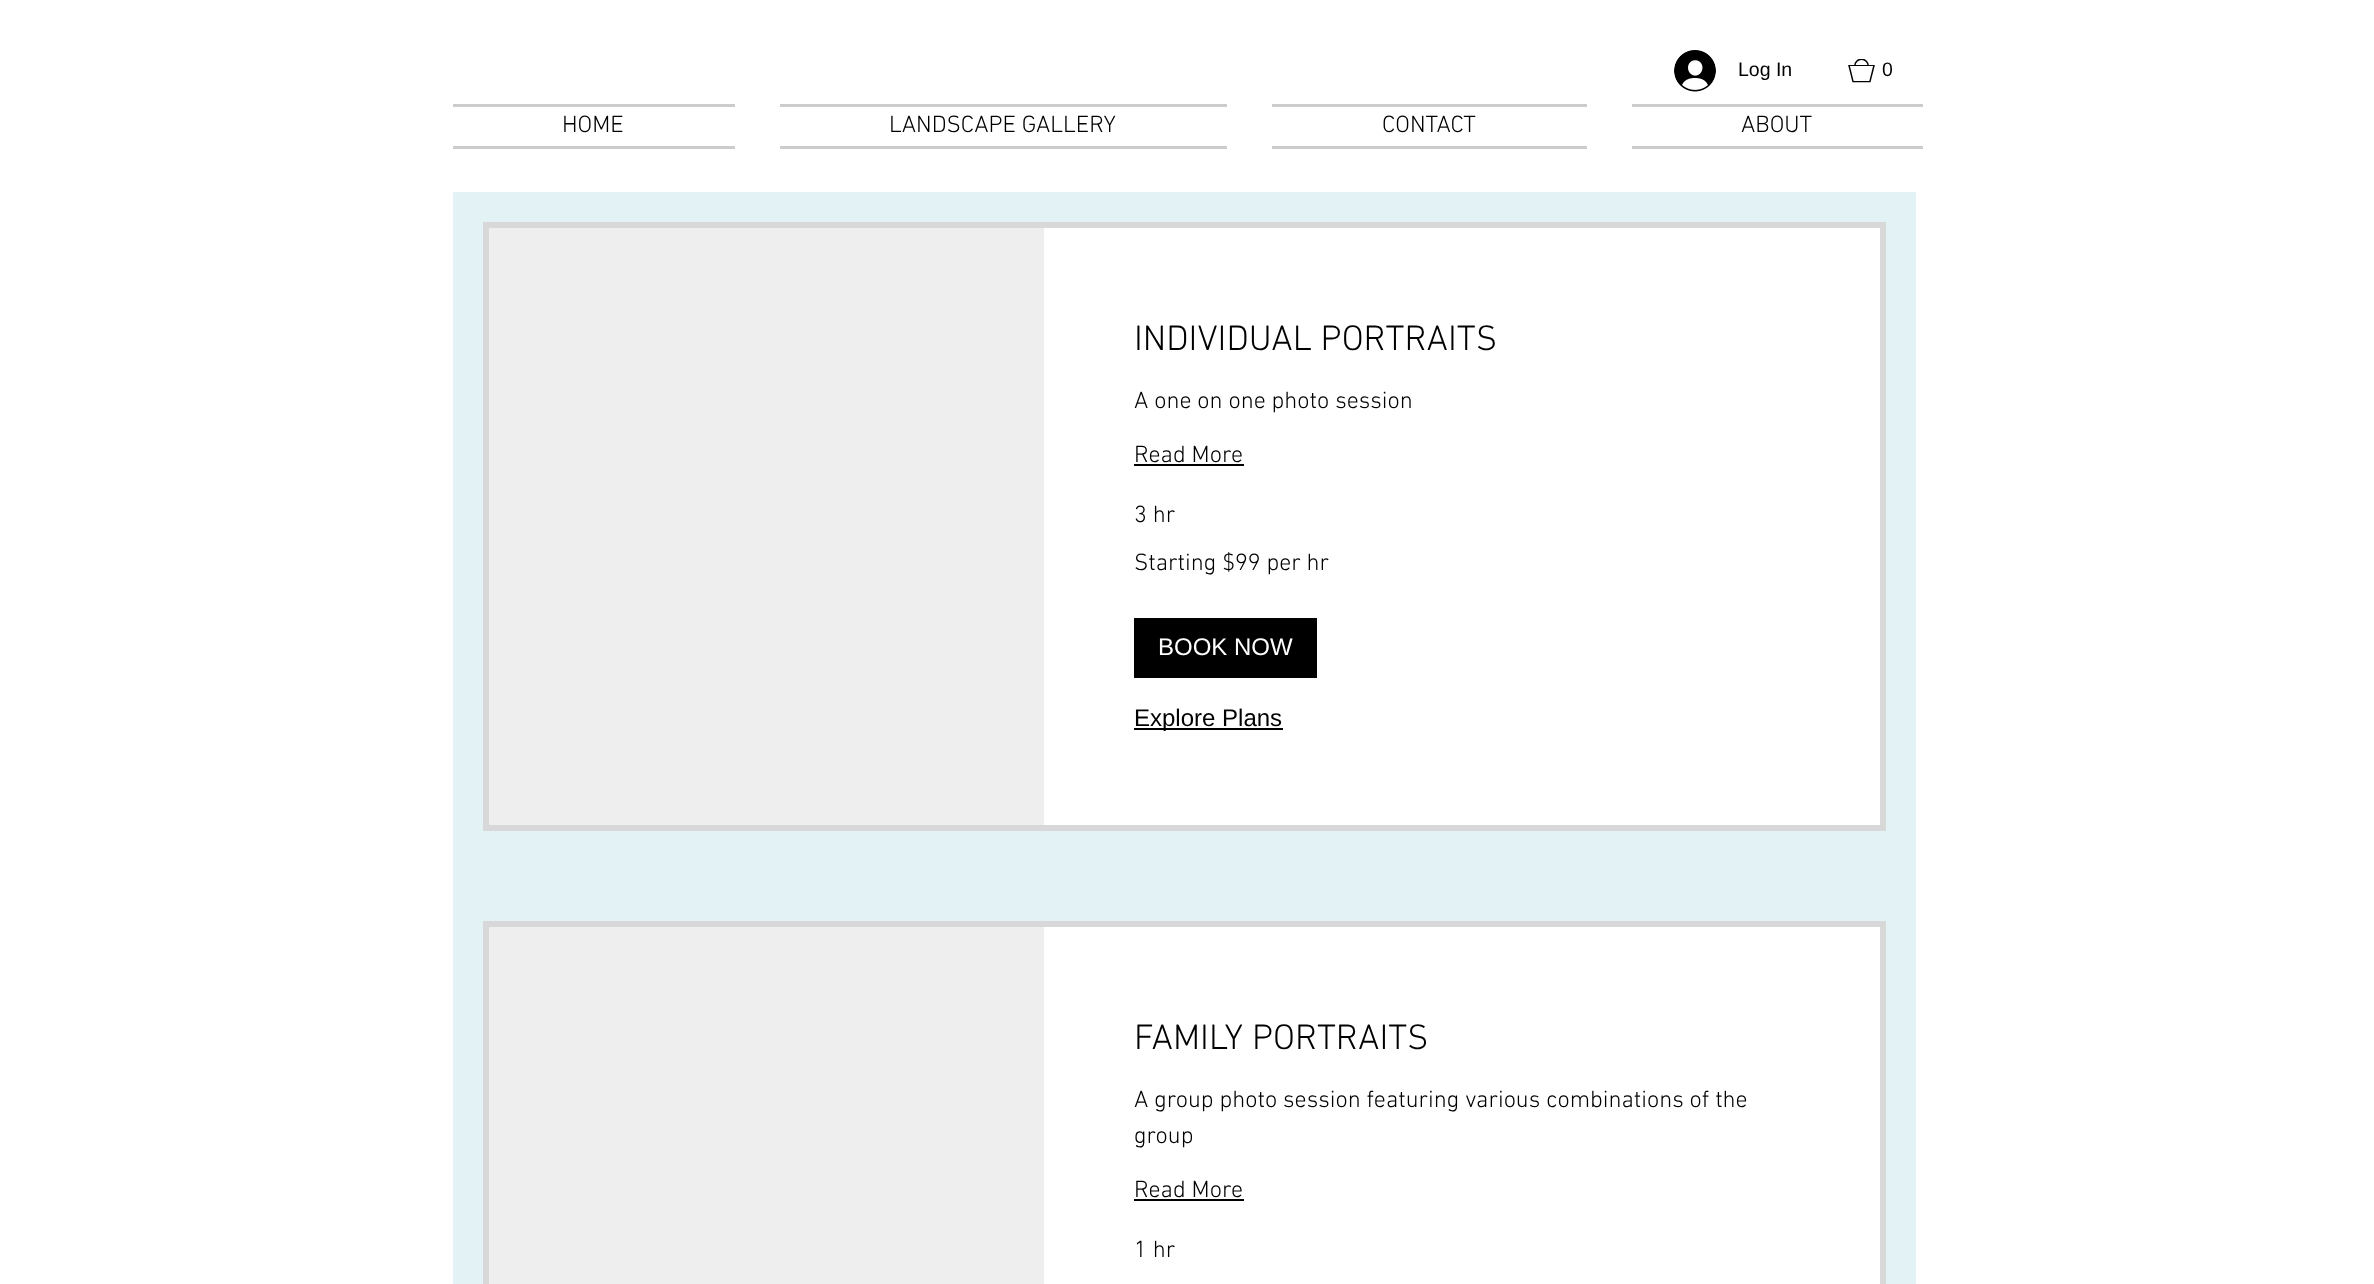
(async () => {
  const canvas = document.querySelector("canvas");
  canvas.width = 2374;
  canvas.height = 1284;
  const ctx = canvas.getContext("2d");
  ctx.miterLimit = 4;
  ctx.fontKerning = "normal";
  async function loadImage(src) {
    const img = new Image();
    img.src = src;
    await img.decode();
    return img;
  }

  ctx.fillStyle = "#ffffff";
  ctx.fillRect(0, 0, 2374, 1284);
  ctx.drawImage(await loadImage("img/1.png"), 1674, 50, 42, 42);
  ctx.drawImage(await loadImage("img/2.png"), 1848, 59, 27, 24);
  for (const [x, y, w, h, color] of [
    [453, 104, 282, 3, "#cccccc"],
    [453, 146, 282, 3, "#cccccc"],
    [780, 104, 447, 3, "#cccccc"],
    [780, 146, 447, 3, "#cccccc"],
    [1272, 104, 315, 3, "#cccccc"],
    [1272, 146, 315, 3, "#cccccc"],
    [1632, 104, 291, 3, "#cccccc"],
    [1632, 146, 291, 3, "#cccccc"],
    [453, 192, 1463, 1092, "#e3f2f4"],
    [1044, 228, 836, 597, "#ffffff"],
  ]) {
    ctx.fillStyle = color;
    ctx.fillRect(x, y, w, h);
  }
  ctx.strokeStyle = "#d8d8d8";
  ctx.lineWidth = 6;
  ctx.strokeRect(486, 225, 1397, 603);
  for (const [x, y, w, h, color] of [
    [489, 228, 555, 597, "#eeeeee"],
    [1134, 464, 110, 2, "#000000"],
    [1134, 618, 183, 60, "#000000"],
    [1134, 728, 149, 2, "#000000"],
    [1044, 927, 836, 357, "#ffffff"],
  ]) {
    ctx.fillStyle = color;
    ctx.fillRect(x, y, w, h);
  }
  ctx.strokeRect(486, 924, 1397, 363);
  ctx.fillStyle = "#eeeeee";
  ctx.fillRect(489, 927, 555, 357);
  ctx.fillStyle = "#000000";
  ctx.fillRect(1134, 1199, 110, 2);
  ctx.font = "19.5px Liberation Sans";
  ctx.fillText("Log In", 1738, 76);
  ctx.fillText("0", 1882, 76);
  ctx.font = "300 24px 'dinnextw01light'";
  for (const [text, x, y] of [
    ["HOME", 562, 132],
    ["LANDSCAPE GALLERY", 889, 132],
    ["CONTACT", 1382, 132],
    ["ABOUT", 1741, 132],
  ]) {
    ctx.fillText(text, x, y);
  }
  ctx.font = "300 36px 'dinnextw01light'";
  ctx.fillText("INDIVIDUAL PORTRAITS", 1134, 350);
  ctx.font = "300 24px 'dinnextw01light'";
  for (const [text, x, y] of [
    ["A one on one photo session", 1134, 408],
    ["Read More", 1134, 462],
    ["3 hr", 1134, 522],
    ["Starting $99 per hr", 1134, 570],
  ]) {
    ctx.fillText(text, x, y);
  }
  ctx.font = "24px Liberation Sans";
  ctx.fillStyle = "#ffffff";
  ctx.fillText("BOOK NOW", 1158, 655);
  ctx.fillStyle = "#000000";
  ctx.fillText("Explore Plans", 1134, 726);
  ctx.font = "300 36px 'dinnextw01light'";
  ctx.fillText("FAMILY PORTRAITS", 1134, 1049);
  ctx.font = "300 24px 'dinnextw01light'";
  for (const [text, x, y] of [
    ["A group photo session featuring various combinations of the", 1134, 1107],
    ["group", 1134, 1143],
    ["Read More", 1134, 1197],
    ["1 hr", 1134, 1257],
  ]) {
    ctx.fillText(text, x, y);
  }
})();
